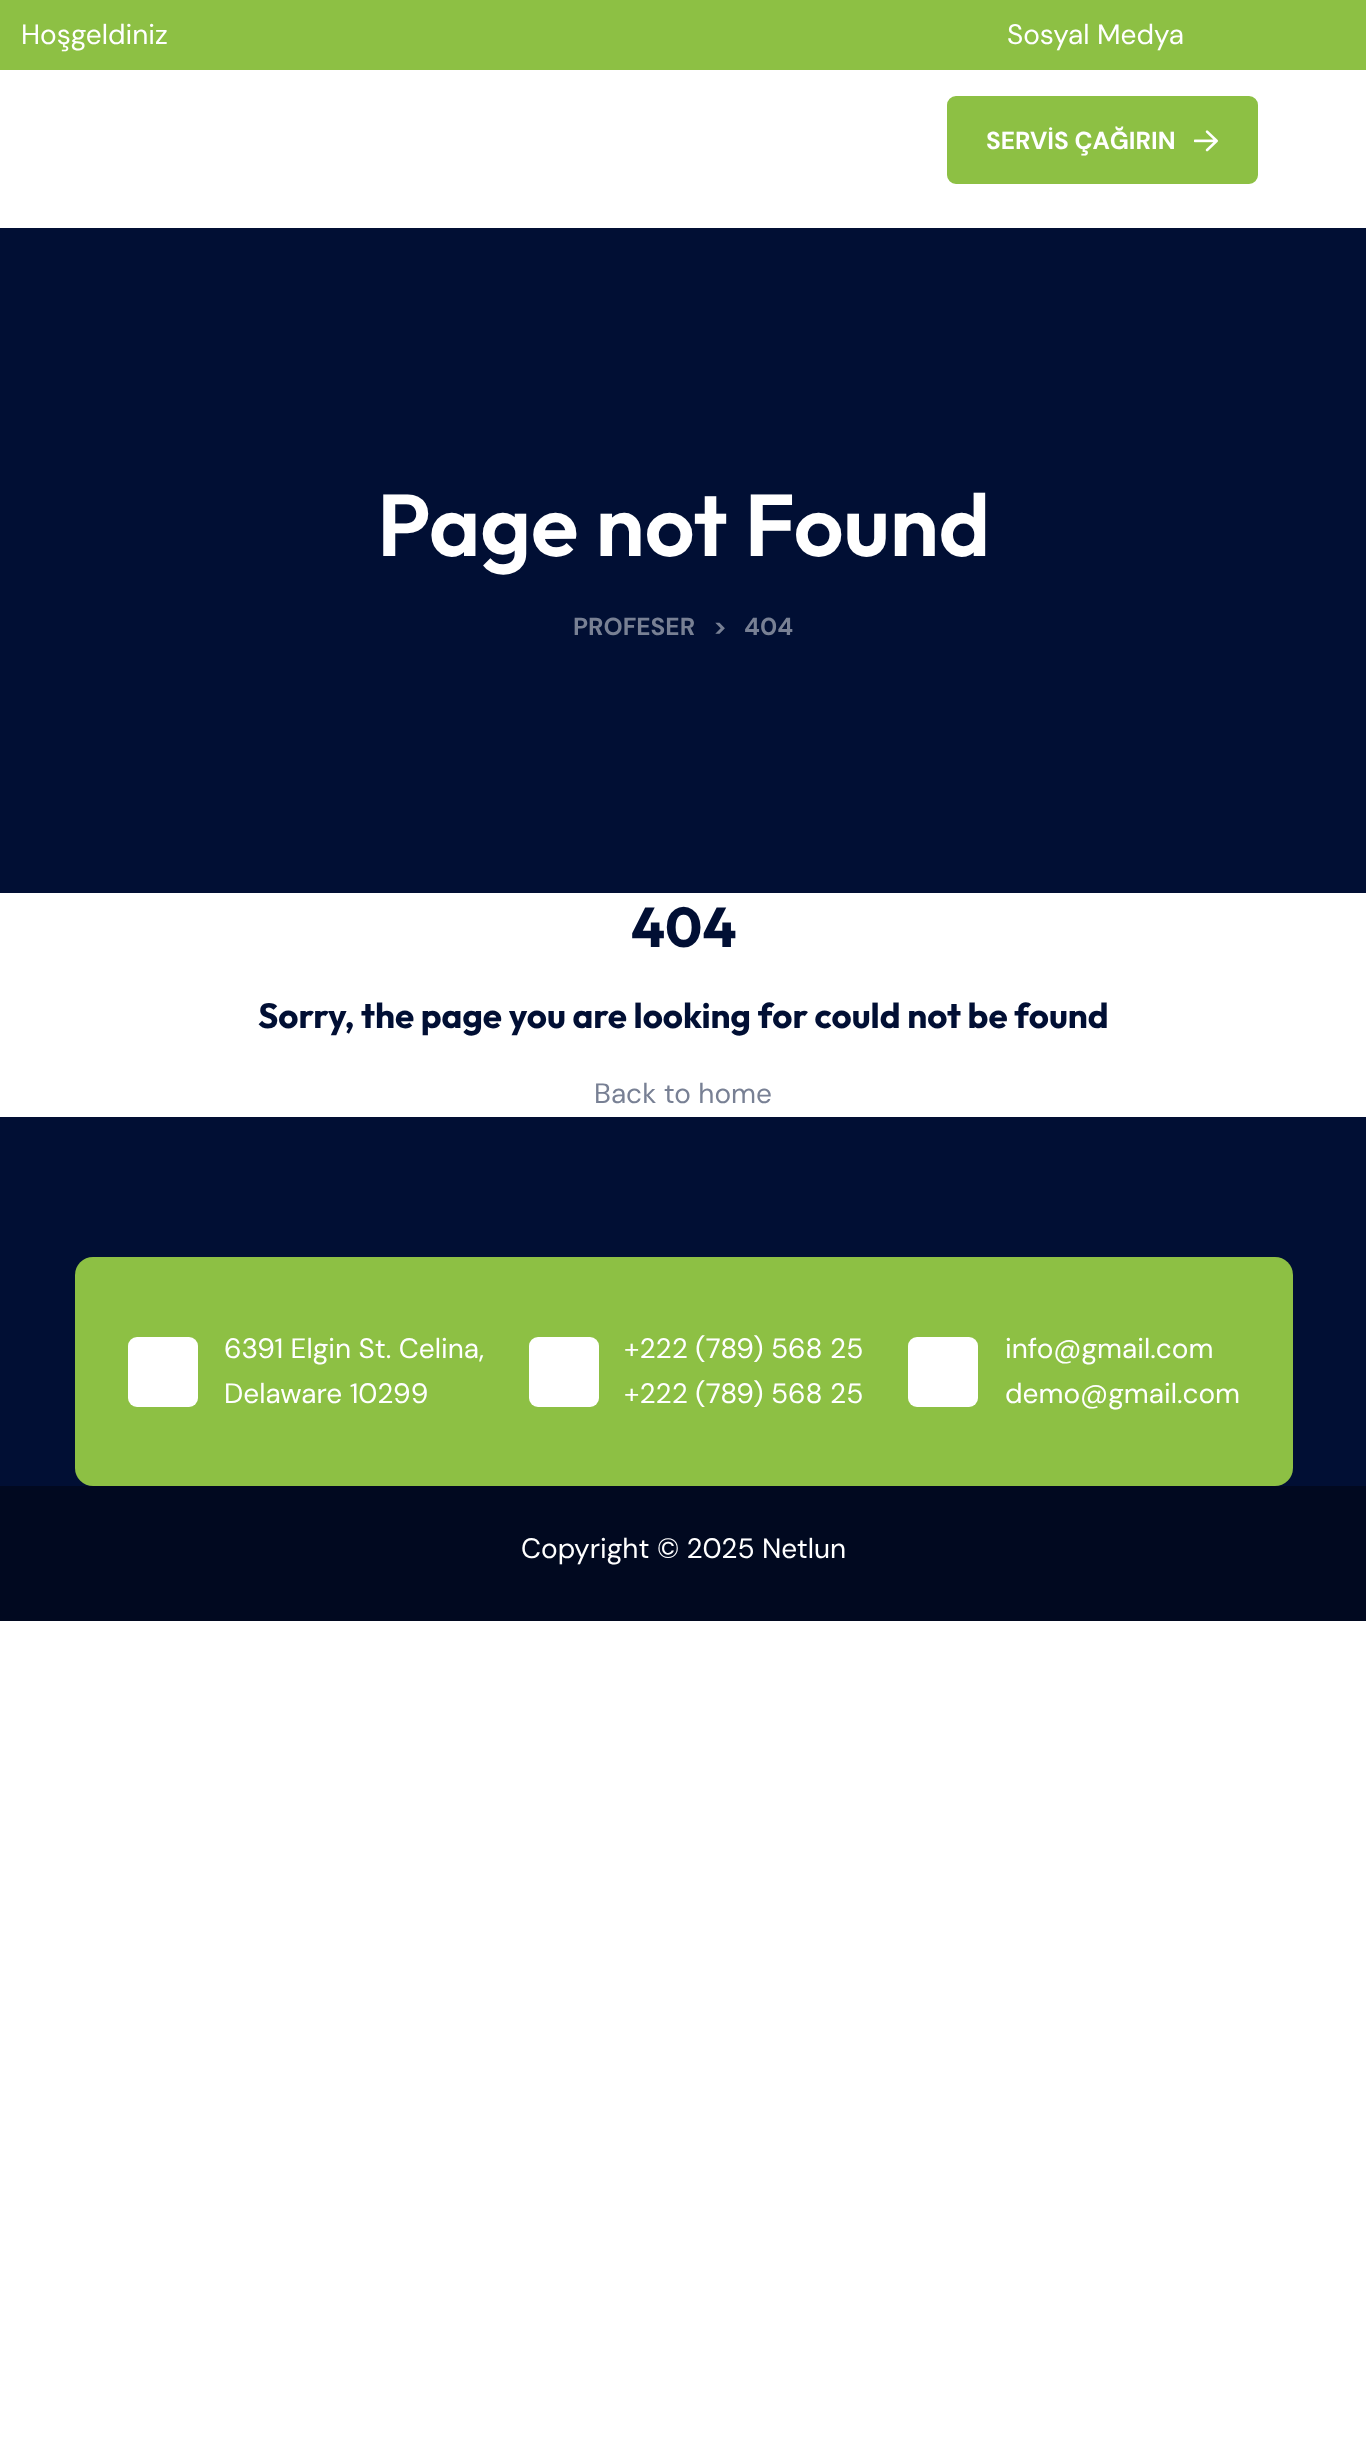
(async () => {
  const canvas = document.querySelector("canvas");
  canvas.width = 1366;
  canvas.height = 2441;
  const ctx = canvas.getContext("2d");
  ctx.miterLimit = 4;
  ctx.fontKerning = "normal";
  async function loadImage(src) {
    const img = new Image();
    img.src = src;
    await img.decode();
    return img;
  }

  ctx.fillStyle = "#ffffff";
  ctx.fillRect(0, 0, 1366, 2441);
  ctx.fillStyle = "#8dc044";
  ctx.fillRect(0, 0, 1366, 70);
  ctx.beginPath();
  ctx.roundRect(948, 97, 309, 86, 8);
  ctx.fill();
  ctx.strokeStyle = "#8dc044";
  ctx.lineWidth = 2;
  ctx.stroke();
  ctx.drawImage(await loadImage("img/1.png"), 1194, 130, 24, 22);
  ctx.fillStyle = "#010f34";
  ctx.fillRect(0, 228, 1366, 665);
  ctx.fillRect(0, 1117, 1366, 369);
  ctx.fillStyle = "#8dc044";
  ctx.beginPath();
  ctx.roundRect(75, 1257, 1218, 229, 18);
  ctx.fill();
  ctx.fillStyle = "#ffffff";
  ctx.beginPath();
  ctx.roundRect(128, 1337, 70, 70, 9);
  ctx.fill();
  ctx.beginPath();
  ctx.roundRect(529, 1337, 70, 70, 9);
  ctx.fill();
  ctx.beginPath();
  ctx.roundRect(908, 1337, 70, 70, 9);
  ctx.fill();
  ctx.fillStyle = "#010920";
  ctx.fillRect(0, 1486, 1366, 135);
  ctx.font = "28px DM Sans";
  ctx.fillStyle = "#ffffff";
  ctx.fillText("Hoşgeldiniz", 21, 44);
  ctx.fillText("Sosyal Medya", 1007, 44);
  ctx.font = "bold 24.5px DM Sans";
  ctx.fillText("SERVİS ÇAĞIRIN", 986, 149);
  ctx.font = "600 87.5px Outfit";
  ctx.fillText("Page not Found", 377, 556);
  ctx.font = "bold 24.5px DM Sans";
  ctx.fillStyle = "#788094";
  for (const [text, x, y] of [
    ["PROFESER", 573, 635],
    [">", 713, 635],
    ["404", 744, 635],
  ]) {
    ctx.fillText(text, x, y);
  }
  ctx.font = "bold 56px Outfit";
  ctx.fillStyle = "#010f34";
  ctx.fillText("404", 631, 947);
  ctx.font = "bold 35px Outfit";
  ctx.fillText("Sorry, the page you are looking for could not be found", 258, 1028);
  ctx.font = "28px DM Sans";
  ctx.fillStyle = "#788094";
  ctx.fillText("Back to home", 594, 1103);
  ctx.fillStyle = "#ffffff";
  for (const [text, x, y] of [
    ["6391 Elgin St. Celina,", 224, 1358],
    ["Delaware 10299", 224, 1403],
    ["+222 (789) 568 25", 624, 1358],
    ["+222 (789) 568 25", 624, 1403],
    ["info@gmail.com", 1005, 1358],
    ["demo@gmail.com", 1005, 1403],
    ["Copyright © 2025 Netlun", 521, 1558],
  ]) {
    ctx.fillText(text, x, y);
  }
})();
